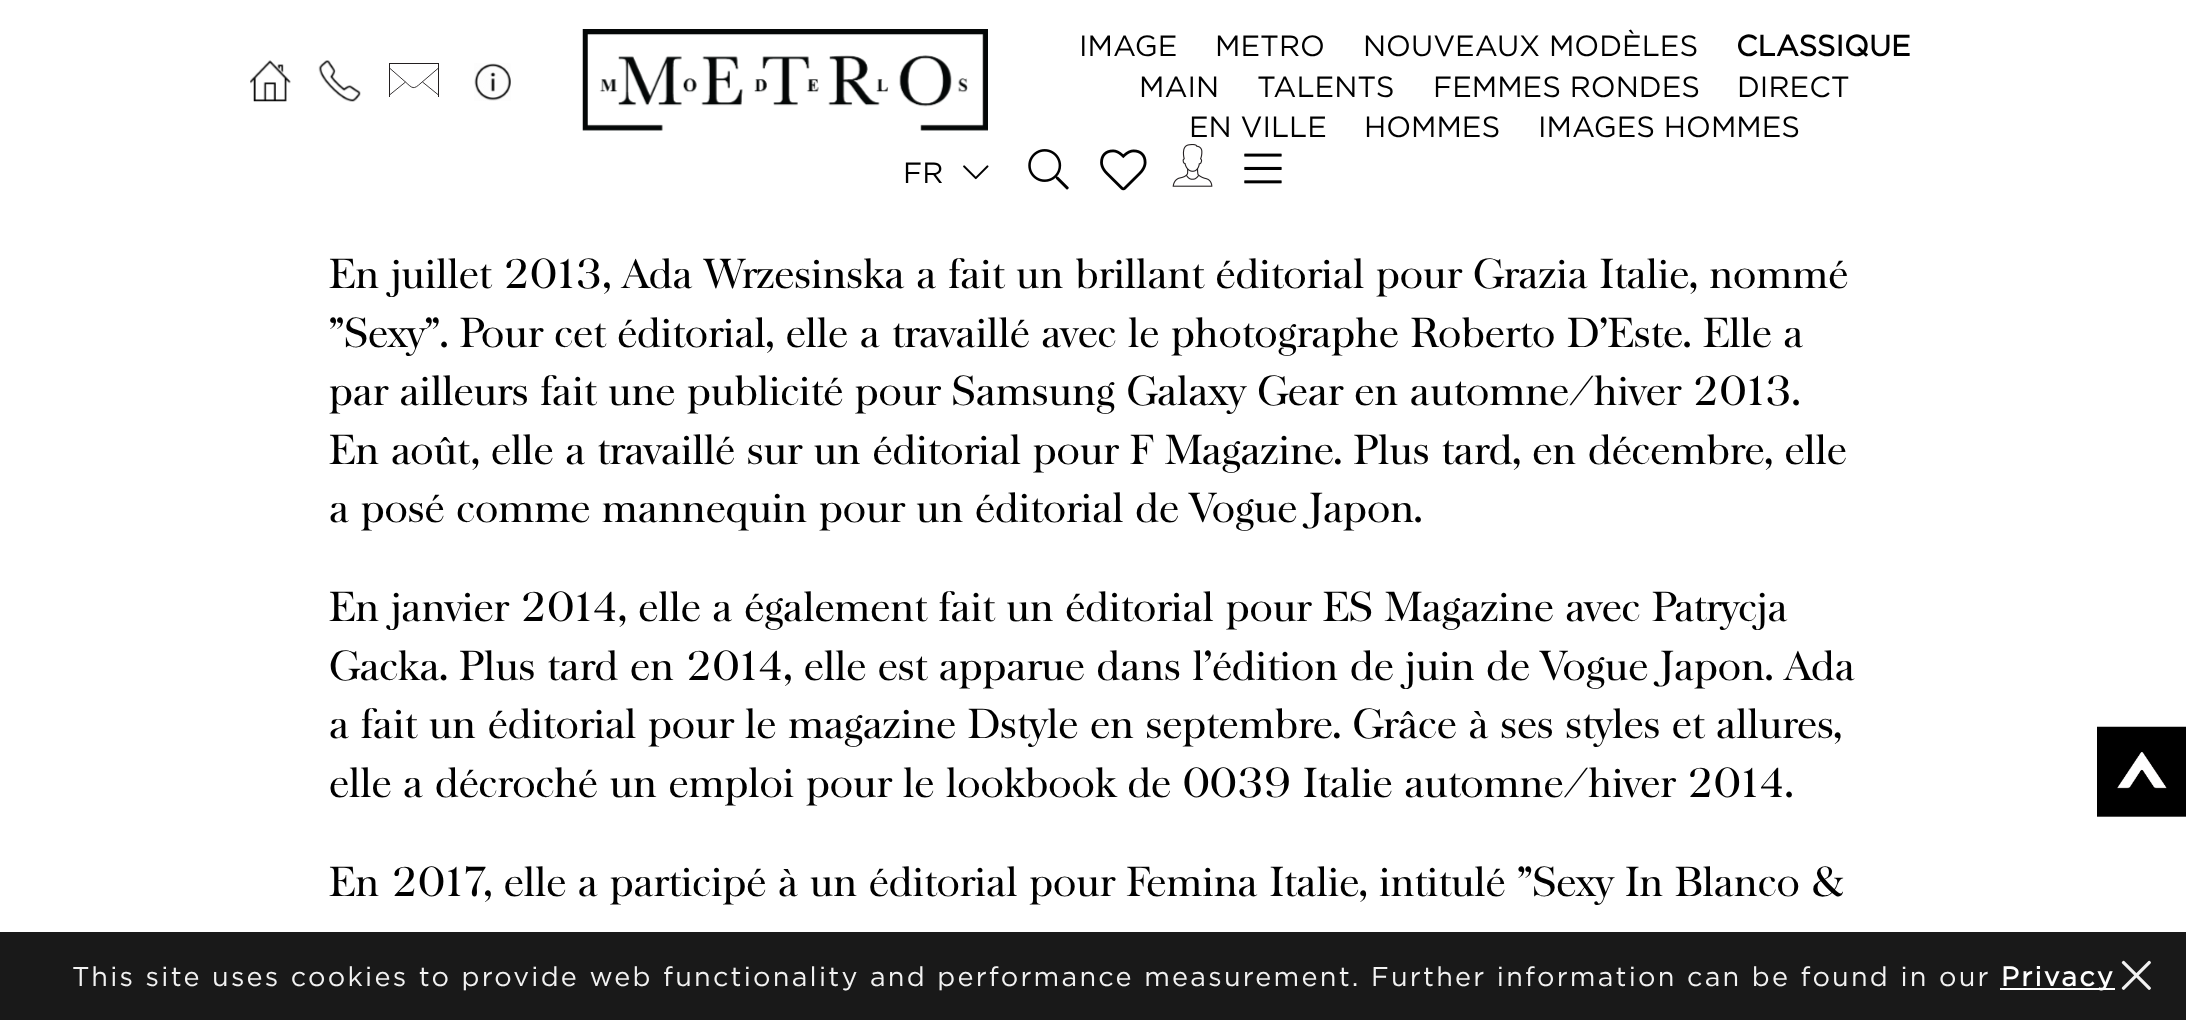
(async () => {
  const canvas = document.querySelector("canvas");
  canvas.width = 2186;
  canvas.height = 1020;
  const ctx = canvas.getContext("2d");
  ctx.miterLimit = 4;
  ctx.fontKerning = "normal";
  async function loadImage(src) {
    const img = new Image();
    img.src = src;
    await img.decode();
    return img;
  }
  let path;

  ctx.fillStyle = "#ffffff";
  ctx.fillRect(0, 0, 2186, 1020);
  ctx.drawImage(await loadImage("img/1.png"), 250, 60, 41, 42);
  ctx.drawImage(await loadImage("img/2.png"), 318, 60, 43, 42);
  ctx.save();
  ctx.beginPath();
  ctx.rect(389, 63, 50, 34);
  ctx.clip();
  ctx.strokeStyle = "#231f20";
  ctx.strokeRect(389.5, 63.5, 49, 35);
  ctx.restore();
  path = new Path2D("M438.5 68L421 83C413.5 90 412.5 88.5 405.5 82L389.5 68M438.5 95L422.5 82M405.5 82L389.5 95");
  ctx.strokeStyle = "#231f20";
  ctx.lineWidth = 0.9;
  ctx.stroke(path);
  ctx.drawImage(await loadImage("img/3.png"), 474, 63, 37, 38);
  ctx.drawImage(await loadImage("img/4.png"), 582, 29, 406, 102);
  ctx.drawImage(await loadImage("img/5.png"), 963, 165, 26, 15);
  ctx.drawImage(await loadImage("img/6.png"), 1028, 149, 41, 41);
  ctx.drawImage(await loadImage("img/7.png"), 1100, 149, 47, 42);
  ctx.drawImage(await loadImage("img/8.png"), 1172, 144, 41, 43);
  ctx.drawImage(await loadImage("img/9.png"), 1244, 153, 38, 31);
  ctx.drawImage(await loadImage("img/10.png"), 2097, 726, 89, 91);
  ctx.fillStyle = "rgba(0, 0, 0, 0.9)";
  ctx.fillRect(0, 932, 2186, 88);
  ctx.fillStyle = "#ffffff";
  ctx.fillRect(2000, 988, 115, 2);
  ctx.drawImage(await loadImage("img/11.png"), 2121, 960, 30, 30);
  ctx.font = "29.25px Gotham";
  ctx.fillStyle = "#000000";
  for (const [text, x, y] of [
    ["IMAGE", 1079, 56],
    ["METRO", 1215, 56],
    ["NOUVEAUX MODÈLES", 1363, 56],
  ]) {
    ctx.fillText(text, x, y);
  }
  ctx.font = "bold 29.25px Gotham";
  ctx.fillText("CLASSIQUE", 1736, 56);
  ctx.font = "29.25px Gotham";
  for (const [text, x, y] of [
    ["MAIN", 1139, 97],
    ["TALENTS", 1257, 97],
    ["FEMMES RONDES", 1433, 97],
    ["DIRECT", 1737, 97],
    ["EN VILLE", 1189, 137],
    ["HOMMES", 1364, 137],
    ["IMAGES HOMMES", 1538, 137],
    ["FR", 903, 183],
  ]) {
    ctx.fillText(text, x, y);
  }
  ctx.font = "40.5px Baskerville";
  for (const [text, x, y] of [
    ["En juillet 2013, Ada Wrzesinska a fait un brillant éditorial pour Grazia Italie, nommé", 329, 288],
    ["\"Sexy\". Pour cet éditorial, elle a travaillé avec le photographe Roberto D'Este. Elle a", 329, 347],
    ["par ailleurs fait une publicité pour Samsung Galaxy Gear en automne/hiver 2013.", 329, 405],
    ["En août, elle a travaillé sur un éditorial pour F Magazine. Plus tard, en décembre, elle", 329, 464],
    ["a posé comme mannequin pour un éditorial de Vogue Japon.", 329, 522],
    ["En janvier 2014, elle a également fait un éditorial pour ES Magazine avec Patrycja", 329, 621],
    ["Gacka. Plus tard en 2014, elle est apparue dans l'édition de juin de Vogue Japon. Ada", 329, 680],
    ["a fait un éditorial pour le magazine Dstyle en septembre. Grâce à ses styles et allures,", 329, 738],
    ["elle a décroché un emploi pour le lookbook de 0039 Italie automne/hiver 2014.", 329, 797],
    ["En 2017, elle a participé à un éditorial pour Femina Italie, intitulé \"Sexy In Blanco &", 329, 896],
  ]) {
    ctx.fillText(text, x, y);
  }
  ctx.letterSpacing = "2.25px";
  ctx.font = "27px Gotham";
  ctx.fillStyle = "#f2f2f2";
  ctx.fillText("This site uses cookies to provide web functionality and performance measurement. Further information can be found in our", 72, 986);
  ctx.font = "bold 27px Gotham";
  ctx.fillStyle = "#ffffff";
  ctx.fillText("Privacy", 2001, 986);
})();
